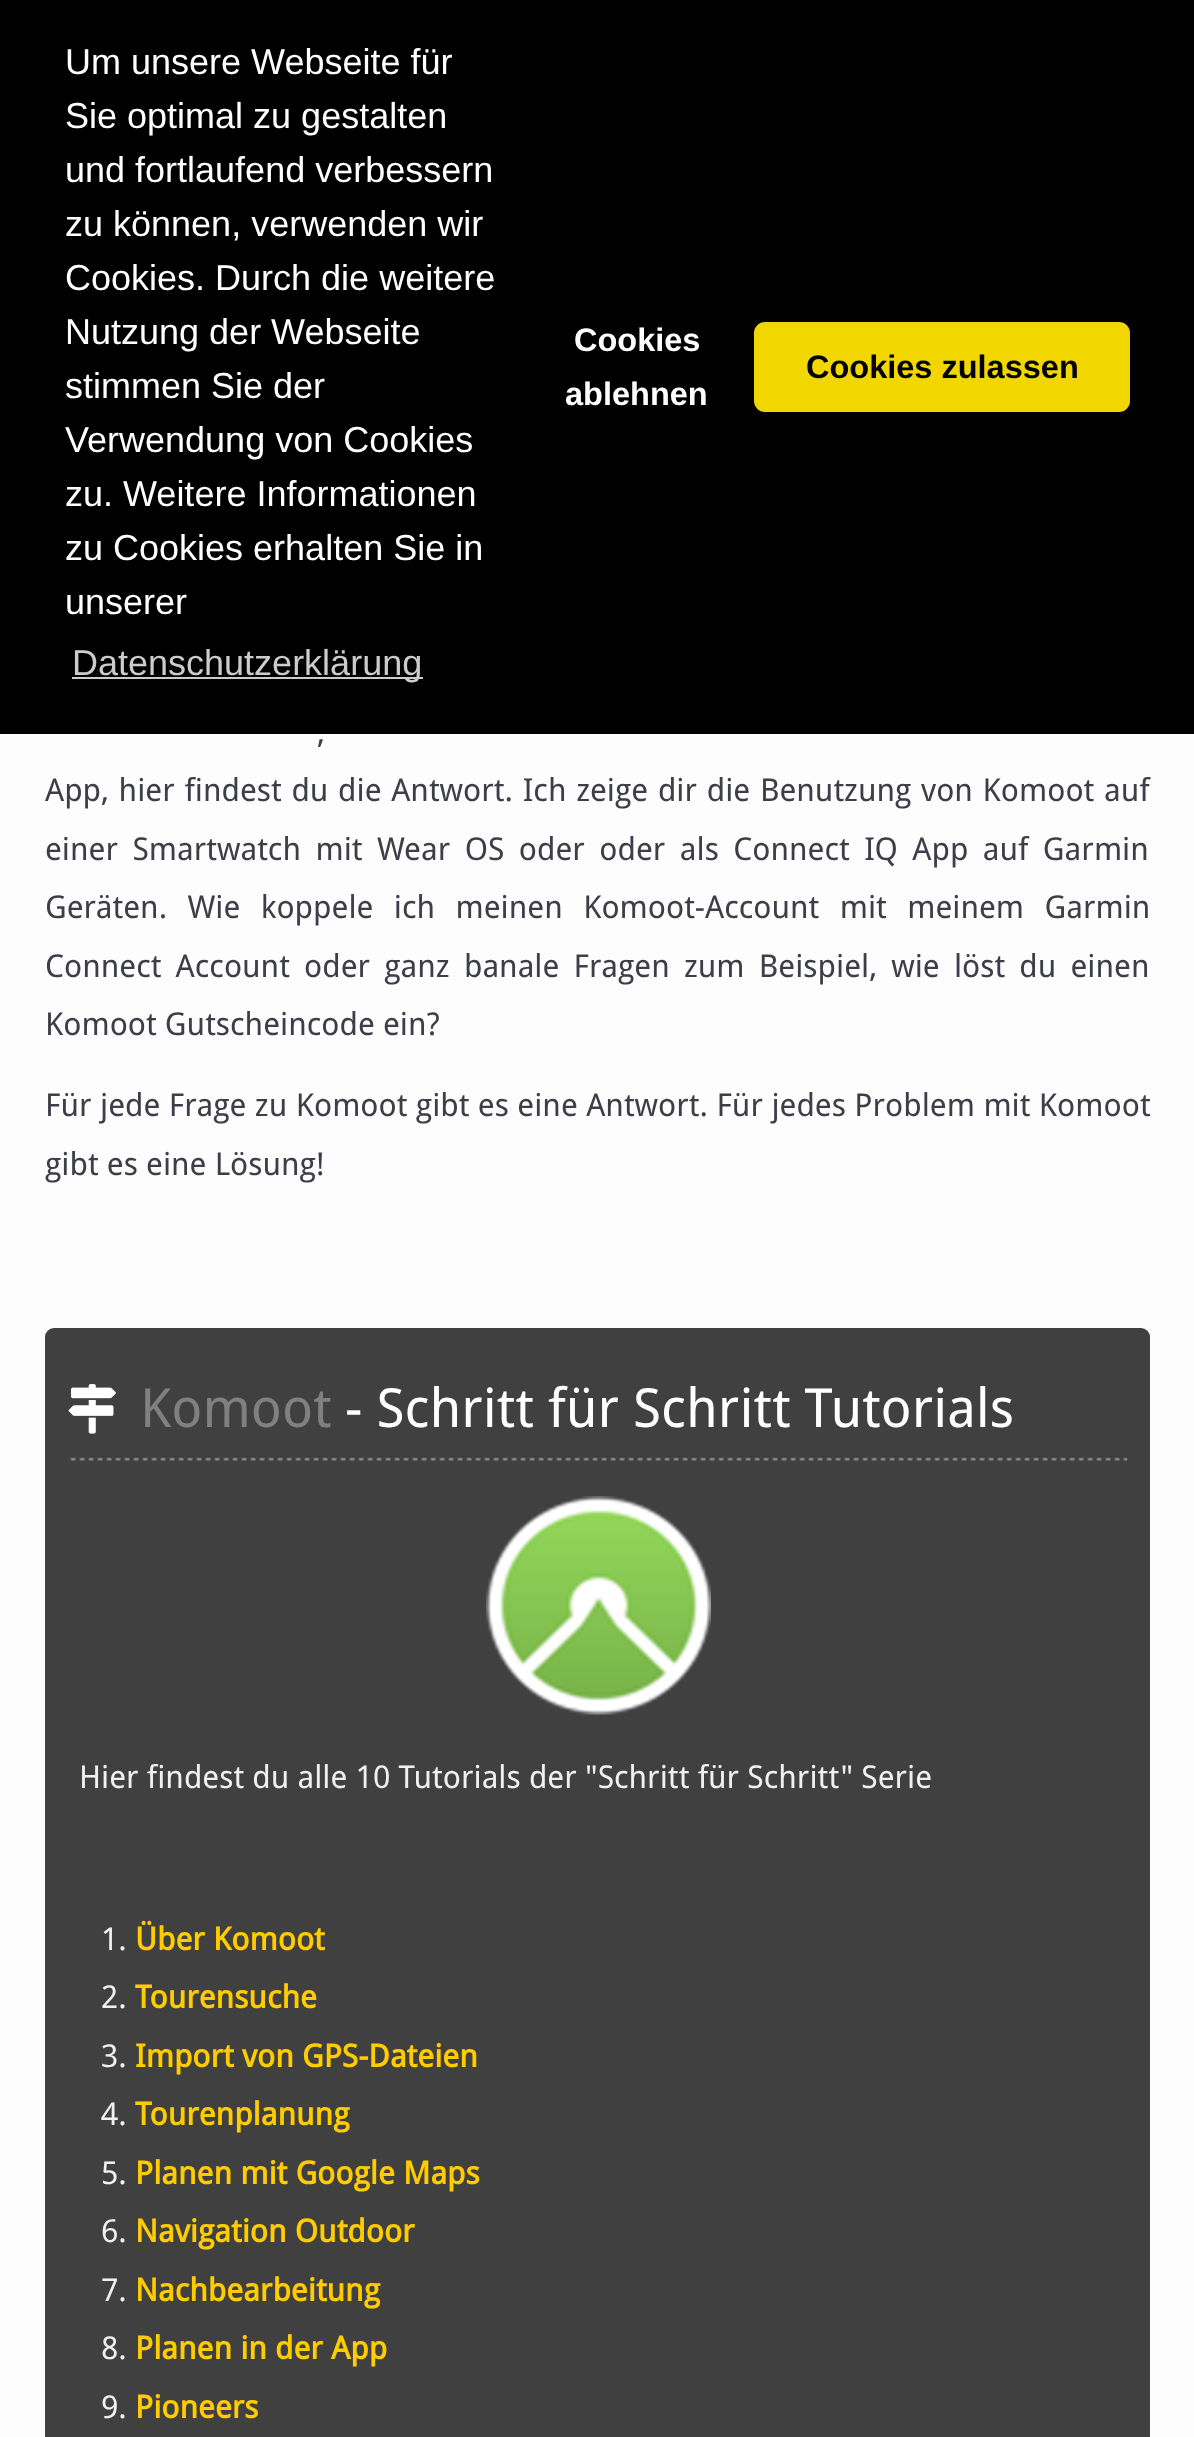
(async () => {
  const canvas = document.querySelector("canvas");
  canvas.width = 1194;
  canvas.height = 2437;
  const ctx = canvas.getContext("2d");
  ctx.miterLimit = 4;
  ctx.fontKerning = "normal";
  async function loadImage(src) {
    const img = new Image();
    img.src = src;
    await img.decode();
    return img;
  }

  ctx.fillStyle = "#fdfdfd";
  ctx.fillRect(0, 0, 1194, 2437);
  ctx.fillStyle = "#000000";
  ctx.fillRect(0, 0, 1194, 734);
  ctx.fillStyle = "#cccccc";
  ctx.fillRect(72, 677, 351, 2);
  ctx.fillStyle = "#f1d600";
  ctx.beginPath();
  ctx.roundRect(754, 322, 376, 90, 11);
  ctx.fill();
  ctx.fillStyle = "#404040";
  ctx.beginPath();
  ctx.roundRect(45, 1328, 1105, 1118, 9);
  ctx.fill();
  ctx.drawImage(await loadImage("img/1.png"), 70, 1456, 1058, 5);
  ctx.drawImage(await loadImage("img/2.png"), 68, 1384, 48, 50);
  ctx.drawImage(await loadImage("img/3.png"), 486, 1496, 225, 219);
  ctx.font = "36px Liberation Sans";
  ctx.fillStyle = "#ffffff";
  for (const [text, x, y] of [
    ["Um unsere Webseite für", 65, 74],
    ["Sie optimal zu gestalten", 65, 128],
    ["und fortlaufend verbessern", 65, 182],
    ["zu können, verwenden wir", 65, 236],
    ["Cookies. Durch die weitere", 65, 290],
    ["Nutzung der Webseite", 65, 344],
    ["stimmen Sie der", 65, 398],
    ["Verwendung von Cookies", 65, 452],
    ["zu. Weitere Informationen", 65, 506],
    ["zu Cookies erhalten Sie in", 65, 560],
    ["unserer", 65, 614],
  ]) {
    ctx.fillText(text, x, y);
  }
  ctx.fillStyle = "#cccccc";
  ctx.fillText("Datenschutzerklärung", 72, 675);
  ctx.font = "bold 32.5px Liberation Sans";
  ctx.fillStyle = "#ffffff";
  ctx.fillText("Cookies", 574, 351);
  ctx.fillText("ablehnen", 565, 405);
  ctx.fillStyle = "#000000";
  ctx.fillText("Cookies zulassen", 806, 378);
  ctx.wordSpacing = "4px";
  ctx.font = "31.5px Droid Sans";
  ctx.fillStyle = "#3d3e47";
  ctx.fillText(",", 317, 743);
  ctx.wordSpacing = "1.5px";
  ctx.fillText("App, hier findest du die Antwort. Ich zeige dir die Benutzung von Komoot auf", 45, 801);
  ctx.wordSpacing = "6.25px";
  ctx.fillText("einer Smartwatch mit Wear OS oder oder als Connect IQ App auf Garmin", 45, 860);
  ctx.wordSpacing = "12.25px";
  ctx.fillText("Geräten. Wie koppele ich meinen Komoot-Account mit meinem Garmin", 45, 918);
  ctx.wordSpacing = "6px";
  ctx.fillText("Connect Account oder ganz banale Fragen zum Beispiel, wie löst du einen", 45, 977);
  ctx.wordSpacing = "0px";
  ctx.fillText("Komoot Gutscheincode ein?", 45, 1035);
  ctx.wordSpacing = "0.25px";
  ctx.fillText("Für jede Frage zu Komoot gibt es eine Antwort. Für jedes Problem mit Komoot", 45, 1116);
  ctx.wordSpacing = "0px";
  ctx.fillText("gibt es eine Lösung!", 45, 1175);
  ctx.font = "54px Droid Sans";
  ctx.fillStyle = "#808080";
  ctx.fillText("Komoot", 140, 1427);
  ctx.fillStyle = "#ffffff";
  ctx.fillText("- Schritt für Schritt Tutorials", 345, 1427);
  ctx.font = "31.5px Droid Sans";
  ctx.fillStyle = "#f0f0f0";
  ctx.fillText("Hier findest du alle 10 Tutorials der \"Schritt für Schritt\" Serie", 79, 1788);
  ctx.fillText("1.", 101, 1950);
  ctx.font = "bold 31.5px Droid Sans";
  ctx.fillStyle = "#ffcc00";
  ctx.fillText("Über Komoot", 135, 1950);
  ctx.font = "31.5px Droid Sans";
  ctx.fillStyle = "#f0f0f0";
  ctx.fillText("2.", 101, 2008);
  ctx.font = "bold 31.5px Droid Sans";
  ctx.fillStyle = "#ffcc00";
  ctx.fillText("Tourensuche", 135, 2008);
  ctx.font = "31.5px Droid Sans";
  ctx.fillStyle = "#f0f0f0";
  ctx.fillText("3.", 101, 2067);
  ctx.font = "bold 31.5px Droid Sans";
  ctx.fillStyle = "#ffcc00";
  ctx.fillText("Import von GPS-Dateien", 135, 2067);
  ctx.font = "31.5px Droid Sans";
  ctx.fillStyle = "#f0f0f0";
  ctx.fillText("4.", 101, 2125);
  ctx.font = "bold 31.5px Droid Sans";
  ctx.fillStyle = "#ffcc00";
  ctx.fillText("Tourenplanung", 135, 2125);
  ctx.font = "31.5px Droid Sans";
  ctx.fillStyle = "#f0f0f0";
  ctx.fillText("5.", 101, 2184);
  ctx.font = "bold 31.5px Droid Sans";
  ctx.fillStyle = "#ffcc00";
  ctx.fillText("Planen mit Google Maps", 135, 2184);
  ctx.font = "31.5px Droid Sans";
  ctx.fillStyle = "#f0f0f0";
  ctx.fillText("6.", 101, 2242);
  ctx.font = "bold 31.5px Droid Sans";
  ctx.fillStyle = "#ffcc00";
  ctx.fillText("Navigation Outdoor", 135, 2242);
  ctx.font = "31.5px Droid Sans";
  ctx.fillStyle = "#f0f0f0";
  ctx.fillText("7.", 101, 2301);
  ctx.font = "bold 31.5px Droid Sans";
  ctx.fillStyle = "#ffcc00";
  ctx.fillText("Nachbearbeitung", 135, 2301);
  ctx.font = "31.5px Droid Sans";
  ctx.fillStyle = "#f0f0f0";
  ctx.fillText("8.", 101, 2359);
  ctx.font = "bold 31.5px Droid Sans";
  ctx.fillStyle = "#ffcc00";
  ctx.fillText("Planen in der App", 135, 2359);
  ctx.font = "31.5px Droid Sans";
  ctx.fillStyle = "#f0f0f0";
  ctx.fillText("9.", 101, 2418);
  ctx.font = "bold 31.5px Droid Sans";
  ctx.fillStyle = "#ffcc00";
  ctx.fillText("Pioneers", 135, 2418);
})();
